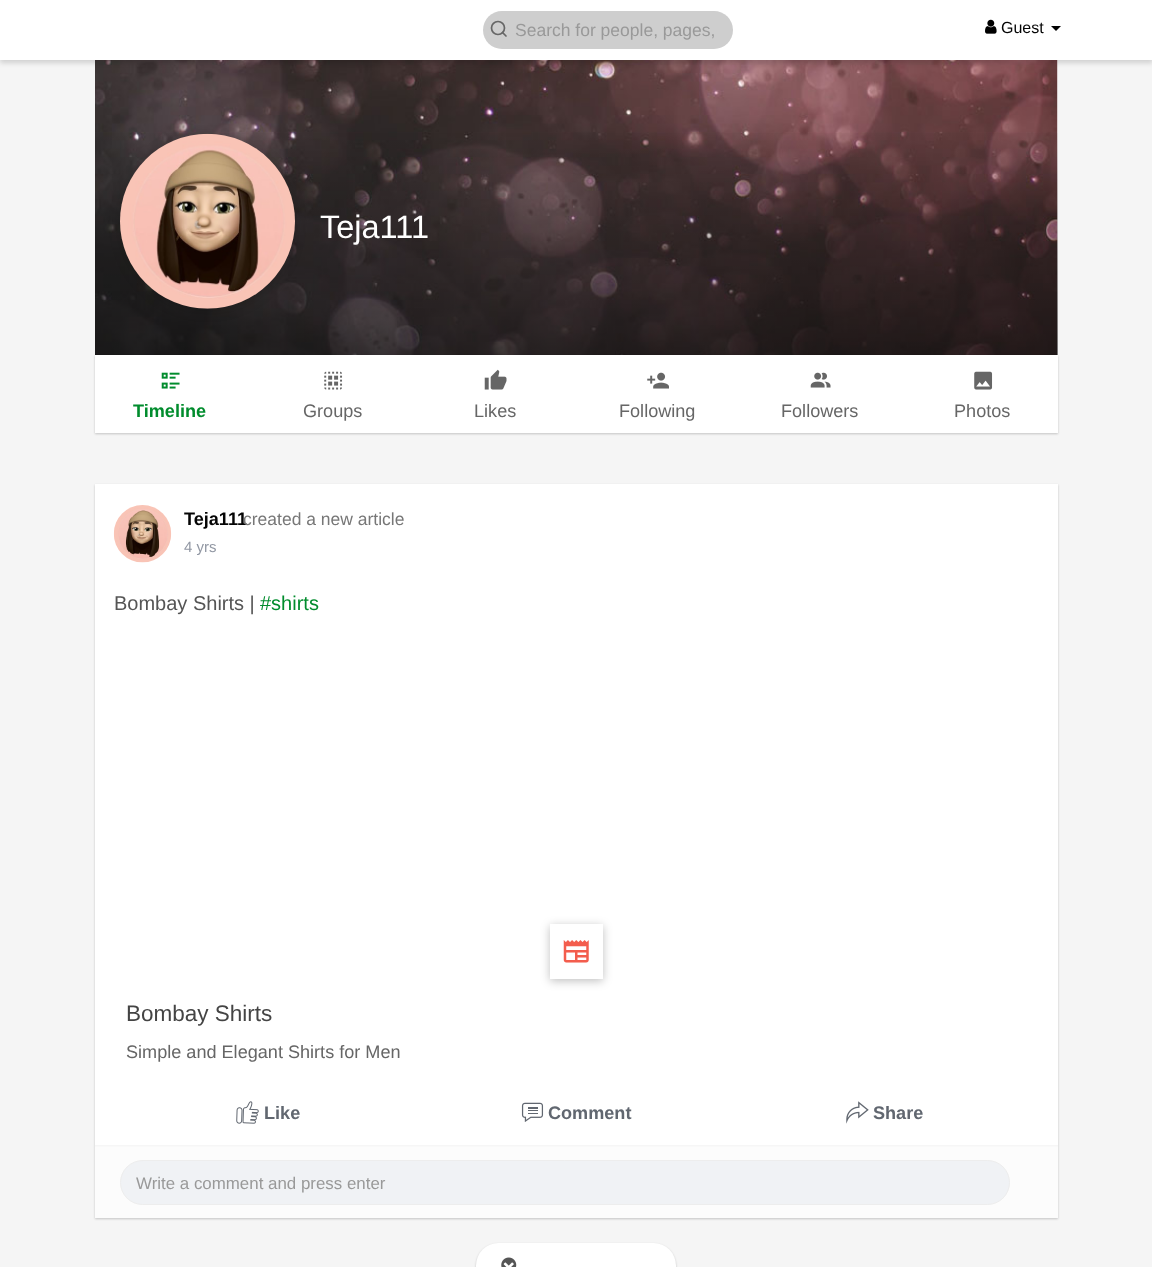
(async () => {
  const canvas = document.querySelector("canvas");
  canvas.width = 1152;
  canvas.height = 1267;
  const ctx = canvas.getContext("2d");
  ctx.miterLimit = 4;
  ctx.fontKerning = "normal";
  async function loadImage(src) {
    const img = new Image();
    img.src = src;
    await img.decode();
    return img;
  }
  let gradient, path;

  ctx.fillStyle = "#f5f5f5";
  ctx.fillRect(0, 0, 1152, 1267);
  ctx.fillStyle = "#ffffff";
  ctx.fillRect(1057, 60, 1, 295);
  ctx.drawImage(await loadImage("img/2.png"), 95, 60, 963, 295);
  ctx.fillStyle = "rgba(0, 0, 0, 0.15)";
  ctx.filter = "blur(2.5px)";
  ctx.beginPath();
  ctx.rect(0, 3, 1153, 60);
  ctx.fill();
  ctx.filter = "none";
  ctx.fillStyle = "#ffffff";
  ctx.fillRect(0, 0, 1152, 60);
  ctx.fillStyle = "#cecece";
  ctx.beginPath();
  ctx.roundRect(483, 11, 250, 38, 19);
  ctx.fill();
  ctx.beginPath();
  ctx.arc(498, 28, 6.5, 0, Math.PI * 2);
  ctx.strokeStyle = "#666666";
  ctx.lineWidth = 1.7;
  ctx.stroke();
  path = new Path2D("M506 36L502.5 32.5");
  ctx.lineCap = "round";
  ctx.lineJoin = "round";
  ctx.stroke(path);
  ctx.drawImage(await loadImage("img/1.png"), 985, 19, 12, 15);
  ctx.fillStyle = "#000000";
  path = new Path2D("M1051 26H1061L1056 31Z");
  ctx.fill(path);
  gradient = ctx.createLinearGradient(576, 121, 576, 371);
  gradient.addColorStop(0, "rgba(0, 0, 0, 0)");
  gradient.addColorStop(1, "rgba(0, 0, 0, 0.45)");
  ctx.fillStyle = gradient;
  ctx.fillRect(95, 133, 963, 222);
  ctx.fillStyle = "rgba(0, 0, 0, 0.15)";
  ctx.filter = "blur(6px)";
  ctx.beginPath();
  ctx.roundRect(120, 136, 175, 175, 87.5);
  ctx.fill();
  ctx.filter = "none";
  ctx.drawImage(await loadImage("img/3.png"), 120, 133, 175, 176);
  ctx.fillStyle = "rgba(0, 0, 0, 0.2)";
  ctx.filter = "blur(1px)";
  ctx.beginPath();
  ctx.rect(95, 356, 963, 78);
  ctx.fill();
  ctx.filter = "none";
  ctx.fillStyle = "#ffffff";
  ctx.fillRect(95, 355, 963, 78);
  ctx.drawImage(await loadImage("img/4.png"), 161, 372, 19, 17);
  ctx.drawImage(await loadImage("img/5.png"), 324, 371, 19, 19);
  ctx.drawImage(await loadImage("img/6.png"), 484, 369, 23, 21);
  ctx.drawImage(await loadImage("img/7.png"), 647, 372, 22, 17);
  ctx.drawImage(await loadImage("img/8.png"), 810, 372, 21, 16);
  ctx.drawImage(await loadImage("img/9.png"), 974, 371, 19, 19);
  ctx.fillStyle = "rgba(0, 0, 0, 0.2)";
  ctx.filter = "blur(1px)";
  ctx.beginPath();
  ctx.rect(95, 485, 963, 734);
  ctx.fill();
  ctx.filter = "none";
  ctx.fillStyle = "#ffffff";
  ctx.fillRect(95, 484, 963, 661);
  ctx.drawImage(await loadImage("img/10.png"), 113, 505, 59, 58);
  ctx.fillStyle = "rgba(0, 0, 0, 0.25)";
  ctx.filter = "blur(5px)";
  ctx.beginPath();
  ctx.rect(550, 926, 53, 55);
  ctx.fill();
  ctx.filter = "none";
  ctx.fillStyle = "#ffffff";
  ctx.fillRect(550, 924, 53, 55);
  ctx.drawImage(await loadImage("img/11.png"), 563, 940, 26, 23);
  ctx.drawImage(await loadImage("img/12.png"), 236, 1101, 23, 23);
  ctx.drawImage(await loadImage("img/13.png"), 521, 1102, 23, 20);
  ctx.drawImage(await loadImage("img/14.png"), 846, 1101, 23, 23);
  for (const [x, y, w, h, color] of [
    [95, 1147, 963, 71, "#fcfcfc"],
    [95, 1145, 963, 1, "#f6f6f6"],
    [95, 1146, 963, 1, "#f9f9f9"],
  ]) {
    ctx.fillStyle = color;
    ctx.fillRect(x, y, w, h);
  }
  ctx.fillStyle = "#f0f2f5";
  ctx.beginPath();
  ctx.roundRect(120.5, 1160.5, 889, 44, 22);
  ctx.fill();
  ctx.strokeStyle = "#ededed";
  ctx.lineWidth = 1;
  ctx.lineJoin = "miter";
  ctx.stroke();
  ctx.fillStyle = "rgba(0, 0, 0, 0.2)";
  ctx.filter = "blur(1px)";
  ctx.beginPath();
  ctx.roundRect(476, 1244, 200, 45, 22.5);
  ctx.fill();
  ctx.filter = "none";
  ctx.fillStyle = "#ffffff";
  ctx.beginPath();
  ctx.roundRect(476, 1243, 200, 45, 22.5);
  ctx.fill();
  ctx.drawImage(await loadImage("img/15.png"), 501, 1257, 16, 10);
  ctx.font = "17.5px Liberation Sans";
  ctx.fillStyle = "#999999";
  ctx.fillText("Search for people, pages,", 515, 36);
  ctx.font = "16px Liberation Sans";
  ctx.fillStyle = "#050505";
  ctx.fillText("Guest", 1001, 33);
  ctx.font = "32.5px Liberation Sans";
  ctx.fillStyle = "#ffffff";
  ctx.fillText("Teja111", 320, 238);
  ctx.font = "bold 18.1px Liberation Sans";
  ctx.fillStyle = "#018c2d";
  ctx.fillText("Timeline", 133, 417);
  ctx.font = "18.1px Liberation Sans";
  ctx.fillStyle = "#666666";
  for (const [text, x, y] of [
    ["Groups", 303, 417],
    ["Likes", 474, 417],
    ["Following", 619, 417],
    ["Followers", 781, 417],
    ["Photos", 954, 417],
  ]) {
    ctx.fillText(text, x, y);
  }
  ctx.font = "bold 18.1px Liberation Sans";
  ctx.fillStyle = "#050505";
  ctx.fillText("Teja111", 184, 525);
  ctx.font = "17.5px Liberation Sans";
  ctx.fillStyle = "#777777";
  ctx.fillText("created a new article", 243, 525);
  ctx.font = "15px Liberation Sans";
  ctx.fillStyle = "#9197a3";
  ctx.fillText("4 yrs", 184, 552);
  ctx.font = "20px Liberation Sans";
  ctx.fillStyle = "#555555";
  ctx.fillText("Bombay Shirts |", 114, 610);
  ctx.fillStyle = "#018c2d";
  ctx.fillText("#shirts", 260, 610);
  ctx.font = "22.5px Liberation Sans";
  ctx.fillStyle = "#444444";
  ctx.fillText("Bombay Shirts", 126, 1021);
  ctx.font = "18.1px Liberation Sans";
  ctx.fillStyle = "#666666";
  ctx.fillText("Simple and Elegant Shirts for Men", 126, 1058);
  ctx.font = "bold 18.1px Liberation Sans";
  ctx.fillStyle = "#616770";
  for (const [text, x, y] of [
    ["Like", 264, 1119],
    ["Comment", 548, 1119],
    ["Share", 873, 1119],
  ]) {
    ctx.fillText(text, x, y);
  }
  ctx.font = "16.9px Liberation Sans";
  ctx.fillStyle = "#999999";
  ctx.fillText("Write a comment and press enter", 136, 1189);
})();
